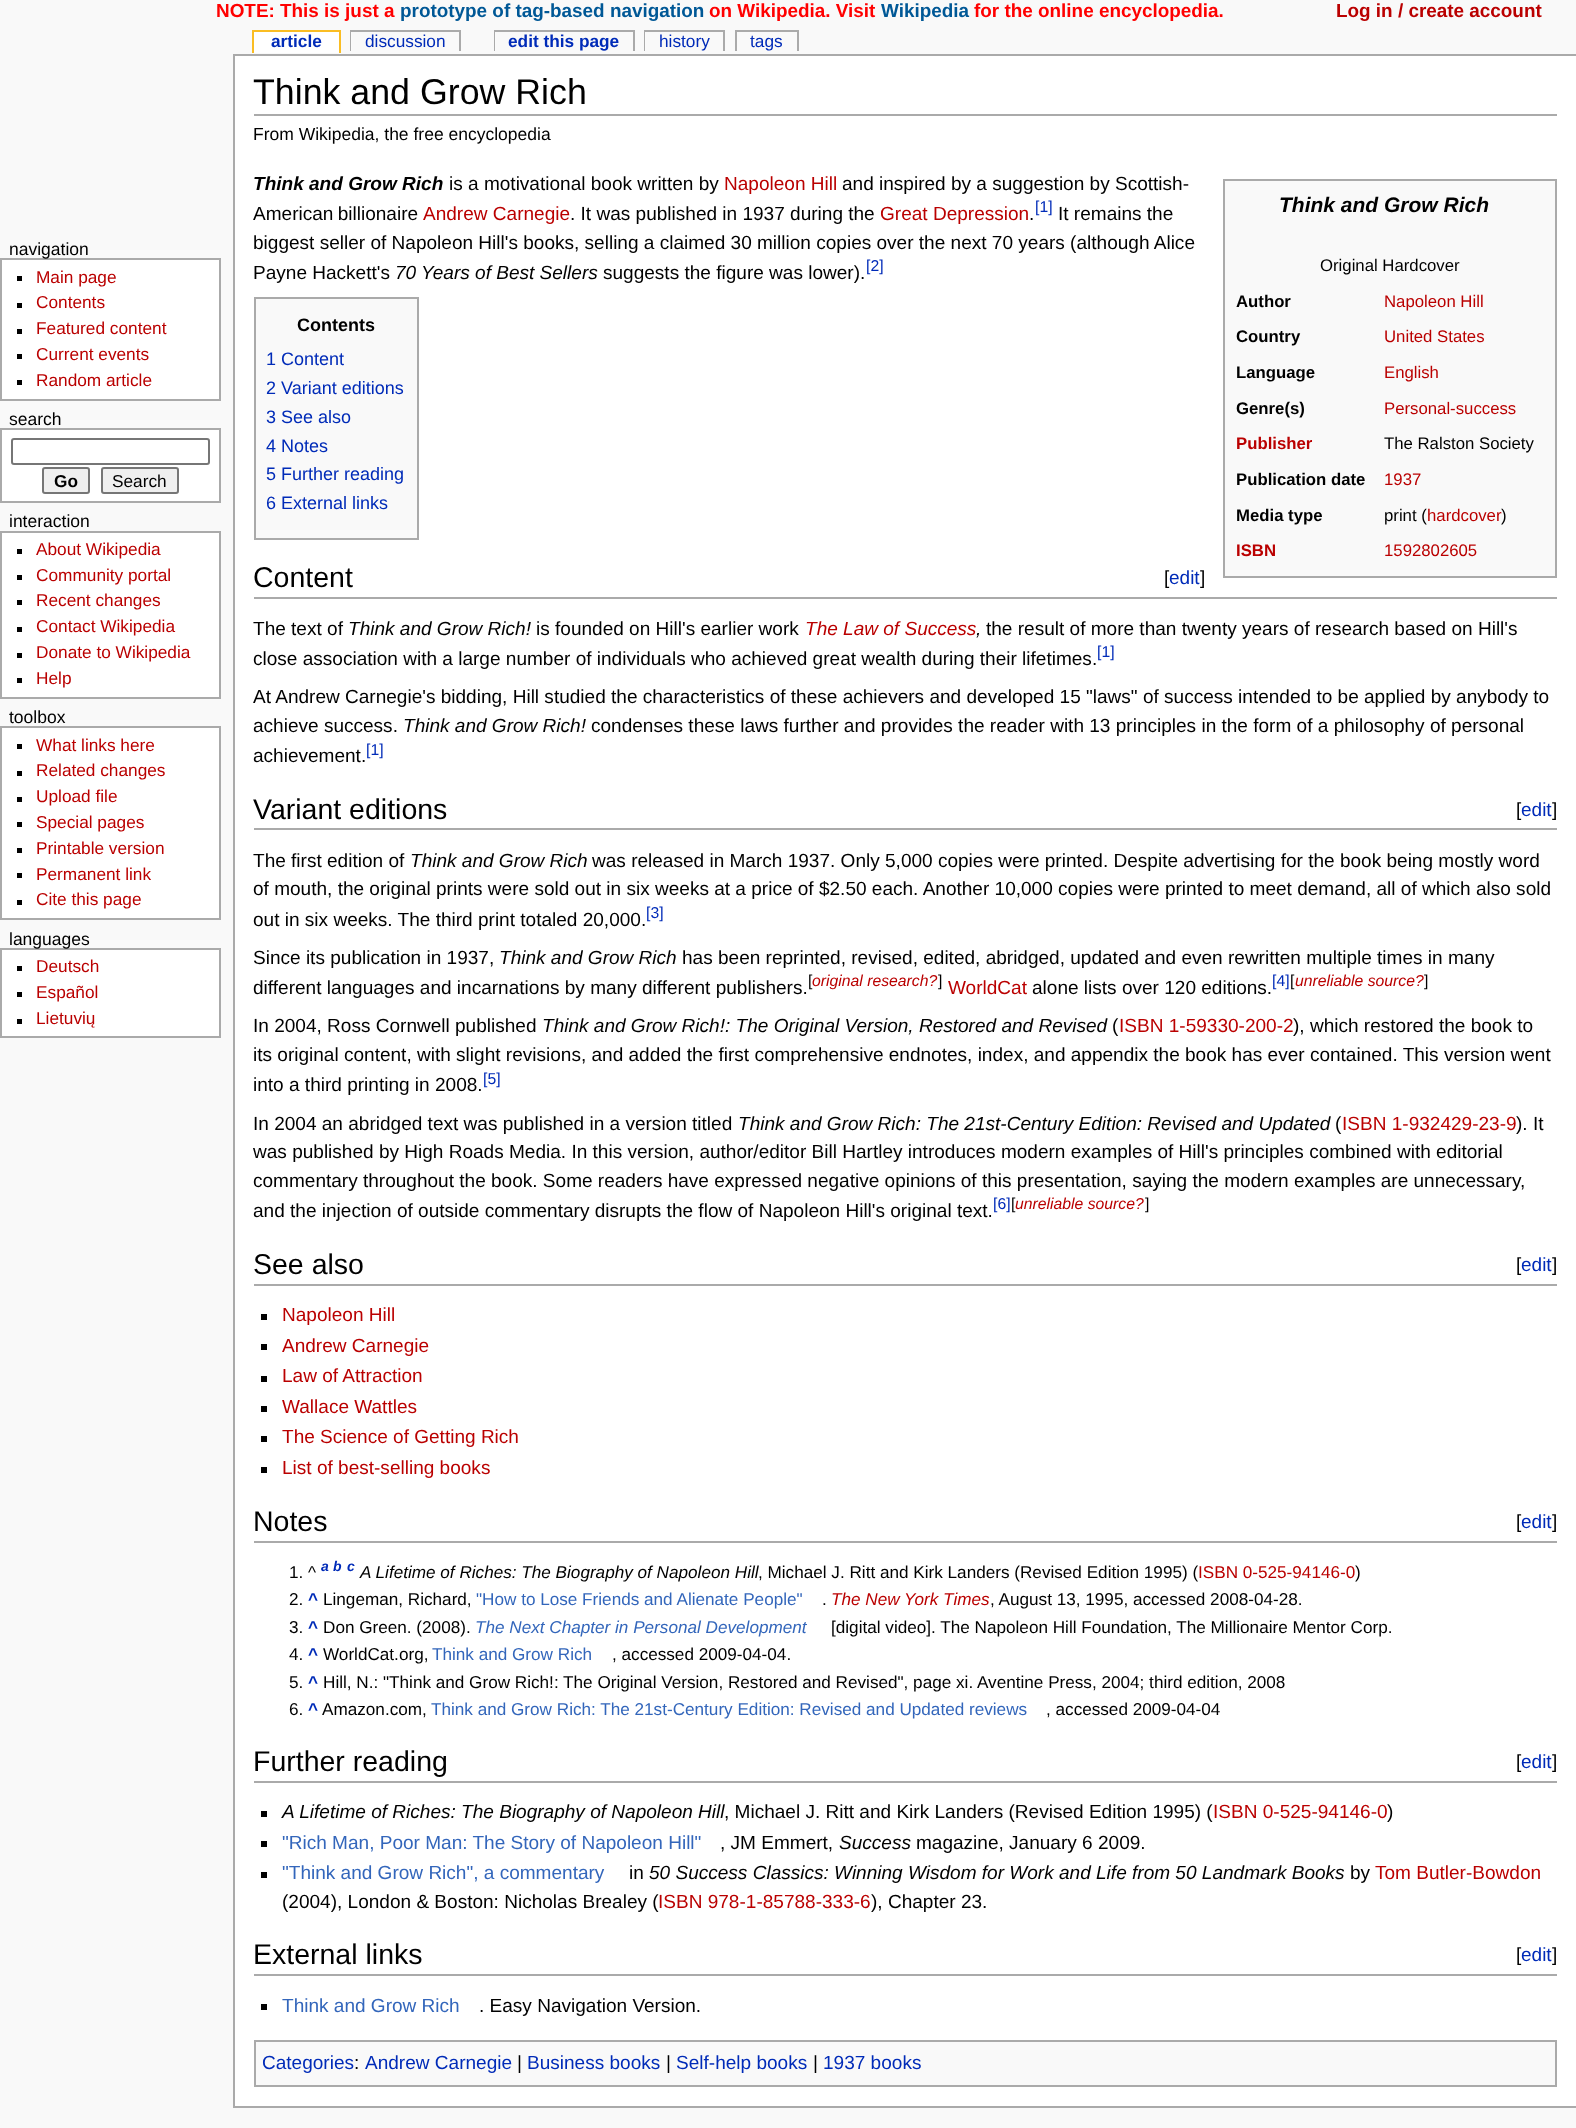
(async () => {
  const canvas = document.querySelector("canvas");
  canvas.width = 1576;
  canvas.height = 2128;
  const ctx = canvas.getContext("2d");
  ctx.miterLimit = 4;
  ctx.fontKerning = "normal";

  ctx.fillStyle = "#f9f9f9";
  ctx.fillRect(0, 0, 1576, 2128);
  for (const [x, y, w, h, color] of [
    [254, 32, 85, 21, "#ffffff"],
    [252, 30, 89, 2, "#fabd23"],
    [339, 30, 2, 23, "#fabd23"],
    [252, 30, 2, 23, "#fabd23"],
    [350, 30, 111, 2, "#aaaaaa"],
    [459, 30, 2, 21, "#aaaaaa"],
    [350, 30, 2, 21, "#aaaaaa"],
    [351, 32, 1, 19, "#fbfbfb"],
    [494, 30, 141, 2, "#aaaaaa"],
    [633, 30, 2, 21, "#aaaaaa"],
    [494, 30, 2, 21, "#aaaaaa"],
    [495, 32, 1, 19, "#fbfbfb"],
    [644, 30, 81, 2, "#aaaaaa"],
    [723, 30, 2, 21, "#aaaaaa"],
    [644, 30, 2, 21, "#aaaaaa"],
    [645, 32, 1, 19, "#fbfbfb"],
    [735, 30, 63, 2, "#aaaaaa"],
    [797, 30, 2, 21, "#aaaaaa"],
    [735, 30, 2, 21, "#aaaaaa"],
  ]) {
    ctx.fillStyle = color;
    ctx.fillRect(x, y, w, h);
  }
  ctx.fillStyle = "#ffffff";
  ctx.beginPath();
  ctx.rect(1, 259, 219, 141);
  ctx.fill();
  ctx.strokeStyle = "#aaaaaa";
  ctx.lineWidth = 2;
  ctx.stroke();
  for (const [x, y, w, h, color] of [
    [17, 276, 5, 5, "#000000"],
    [17, 303, 5, 5, "#000000"],
    [17, 329, 5, 5, "#000000"],
    [17, 354, 5, 5, "#000000"],
    [17, 380, 5, 5, "#000000"],
  ]) {
    ctx.fillStyle = color;
    ctx.fillRect(x, y, w, h);
  }
  ctx.fillStyle = "#ffffff";
  ctx.beginPath();
  ctx.rect(1, 429, 219, 73);
  ctx.fill();
  ctx.stroke();
  ctx.beginPath();
  ctx.roundRect(12, 439, 197, 25, 2);
  ctx.strokeStyle = "#767676";
  ctx.stroke();
  ctx.fillStyle = "#efefef";
  ctx.beginPath();
  ctx.roundRect(43, 468, 46, 25, 2);
  ctx.fill();
  ctx.stroke();
  ctx.beginPath();
  ctx.roundRect(102, 468, 76, 25, 2);
  ctx.fill();
  ctx.stroke();
  ctx.fillStyle = "#ffffff";
  ctx.beginPath();
  ctx.rect(1, 532, 219, 166);
  ctx.fill();
  ctx.strokeStyle = "#aaaaaa";
  ctx.stroke();
  for (const [x, y, w, h, color] of [
    [17, 549, 5, 5, "#000000"],
    [17, 575, 5, 5, "#000000"],
    [17, 600, 5, 5, "#000000"],
    [17, 627, 5, 5, "#000000"],
    [17, 653, 5, 5, "#000000"],
    [17, 678, 5, 5, "#000000"],
  ]) {
    ctx.fillStyle = color;
    ctx.fillRect(x, y, w, h);
  }
  ctx.fillStyle = "#ffffff";
  ctx.beginPath();
  ctx.rect(1, 727, 219, 192);
  ctx.fill();
  ctx.stroke();
  for (const [x, y, w, h, color] of [
    [17, 744, 5, 5, "#000000"],
    [17, 771, 5, 5, "#000000"],
    [17, 797, 5, 5, "#000000"],
    [17, 822, 5, 5, "#000000"],
    [17, 848, 5, 5, "#000000"],
    [17, 873, 5, 5, "#000000"],
    [17, 900, 5, 5, "#000000"],
  ]) {
    ctx.fillStyle = color;
    ctx.fillRect(x, y, w, h);
  }
  ctx.fillStyle = "#ffffff";
  ctx.beginPath();
  ctx.rect(1, 949, 219, 88);
  ctx.fill();
  ctx.stroke();
  for (const [x, y, w, h, color] of [
    [17, 966, 5, 5, "#000000"],
    [17, 992, 5, 5, "#000000"],
    [17, 1019, 5, 5, "#000000"],
    [235, 56, 1341, 2050, "#ffffff"],
    [233, 54, 1343, 2, "#aaaaaa"],
    [233, 2106, 1343, 2, "#aaaaaa"],
    [233, 54, 2, 2054, "#aaaaaa"],
    [254, 114, 1303, 2, "#aaaaaa"],
  ]) {
    ctx.fillStyle = color;
    ctx.fillRect(x, y, w, h);
  }
  ctx.fillStyle = "#f9f9f9";
  ctx.beginPath();
  ctx.rect(1224, 180, 332, 397);
  ctx.fill();
  ctx.stroke();
  ctx.beginPath();
  ctx.rect(255, 298, 163, 241);
  ctx.fill();
  ctx.stroke();
  for (const [x, y, w, h, color] of [
    [254, 597, 1303, 2, "#aaaaaa"],
    [254, 828, 1303, 2, "#aaaaaa"],
    [254, 1284, 1303, 2, "#aaaaaa"],
    [261, 1314, 6, 6, "#000000"],
    [261, 1344, 6, 6, "#000000"],
    [261, 1376, 6, 6, "#000000"],
    [261, 1406, 6, 6, "#000000"],
    [261, 1436, 6, 6, "#000000"],
    [261, 1467, 6, 6, "#000000"],
    [254, 1541, 1303, 2, "#aaaaaa"],
    [254, 1781, 1303, 2, "#aaaaaa"],
    [261, 1811, 6, 6, "#000000"],
    [261, 1841, 6, 6, "#000000"],
    [261, 1872, 6, 6, "#000000"],
    [254, 1974, 1303, 2, "#aaaaaa"],
    [261, 2004, 6, 6, "#000000"],
  ]) {
    ctx.fillStyle = color;
    ctx.fillRect(x, y, w, h);
  }
  ctx.fillStyle = "#f9f9f9";
  ctx.beginPath();
  ctx.rect(255, 2041, 1301, 45);
  ctx.fill();
  ctx.stroke();
  ctx.font = "bold 18.9px Liberation Sans";
  ctx.fillStyle = "#ff0000";
  ctx.fillText("NOTE: This is just a", 216, 17);
  ctx.fillStyle = "#005896";
  ctx.fillText("prototype of tag-based navigation", 400, 17);
  ctx.fillStyle = "#ff0000";
  ctx.fillText("on Wikipedia. Visit", 709, 17);
  ctx.fillStyle = "#005896";
  ctx.fillText("Wikipedia", 881, 17);
  ctx.fillStyle = "#ff0000";
  ctx.fillText("for the online encyclopedia.", 974, 17);
  ctx.fillStyle = "#ba0000";
  ctx.fillText("Log in / create account", 1336, 17);
  ctx.font = "bold 17.25px Liberation Sans";
  ctx.fillStyle = "#002bb8";
  ctx.fillText("article", 271, 47);
  ctx.font = "17.25px Liberation Sans";
  ctx.fillText("discussion", 365, 47);
  ctx.font = "bold 17.25px Liberation Sans";
  ctx.fillText("edit this page", 508, 47);
  ctx.font = "17.25px Liberation Sans";
  ctx.fillText("history", 659, 47);
  ctx.fillText("tags", 750, 47);
  ctx.font = "17.5px Liberation Sans";
  ctx.fillStyle = "#000000";
  ctx.fillText("navigation", 9, 255);
  ctx.font = "17.25px Liberation Sans";
  ctx.fillStyle = "#ba0000";
  for (const [text, x, y] of [
    ["Main page", 36, 283],
    ["Contents", 36, 308],
    ["Featured content", 36, 334],
    ["Current events", 36, 360],
    ["Random article", 36, 386],
  ]) {
    ctx.fillText(text, x, y);
  }
  ctx.font = "17.5px Liberation Sans";
  ctx.fillStyle = "#000000";
  ctx.fillText("search", 9, 425);
  ctx.font = "bold 17.25px Liberation Sans";
  ctx.fillText("Go", 54, 487);
  ctx.font = "17.25px Liberation Sans";
  ctx.fillText("Search", 112, 487);
  ctx.font = "17.5px Liberation Sans";
  ctx.fillText("interaction", 9, 527);
  ctx.font = "17.25px Liberation Sans";
  ctx.fillStyle = "#ba0000";
  for (const [text, x, y] of [
    ["About Wikipedia", 36, 555],
    ["Community portal", 36, 581],
    ["Recent changes", 36, 606],
    ["Contact Wikipedia", 36, 632],
    ["Donate to Wikipedia", 36, 658],
    ["Help", 36, 684],
  ]) {
    ctx.fillText(text, x, y);
  }
  ctx.font = "17.5px Liberation Sans";
  ctx.fillStyle = "#000000";
  ctx.fillText("toolbox", 9, 723);
  ctx.font = "17.25px Liberation Sans";
  ctx.fillStyle = "#ba0000";
  for (const [text, x, y] of [
    ["What links here", 36, 751],
    ["Related changes", 36, 776],
    ["Upload file", 36, 802],
    ["Special pages", 36, 828],
    ["Printable version", 36, 854],
    ["Permanent link", 36, 880],
    ["Cite this page", 36, 905],
  ]) {
    ctx.fillText(text, x, y);
  }
  ctx.font = "17.5px Liberation Sans";
  ctx.fillStyle = "#000000";
  ctx.fillText("languages", 9, 945);
  ctx.font = "17.25px Liberation Sans";
  ctx.fillStyle = "#ba0000";
  for (const [text, x, y] of [
    ["Deutsch", 36, 972],
    ["Español", 36, 998],
    ["Lietuvių", 36, 1024],
  ]) {
    ctx.fillText(text, x, y);
  }
  ctx.font = "35.75px Liberation Sans";
  ctx.fillStyle = "#000000";
  ctx.fillText("Think and Grow Rich", 253, 104);
  ctx.font = "17.5px Liberation Sans";
  ctx.fillText("From Wikipedia, the free encyclopedia", 253, 140);
  ctx.font = "italic bold 19.05px Liberation Sans";
  ctx.fillText("Think and Grow Rich", 253, 190);
  ctx.font = "19.05px Liberation Sans";
  ctx.fillText("is a motivational book written by", 449, 190);
  ctx.fillStyle = "#ba0000";
  ctx.fillText("Napoleon Hill", 724, 190);
  ctx.fillStyle = "#000000";
  ctx.fillText("and inspired by a suggestion by Scottish-", 842, 190);
  ctx.wordSpacing = "-1px";
  ctx.fillText("American billionaire", 253, 220);
  ctx.wordSpacing = "0px";
  ctx.fillStyle = "#ba0000";
  ctx.fillText("Andrew Carnegie", 423, 220);
  ctx.fillStyle = "#000000";
  ctx.fillText(". It was published in 1937 during the", 570, 220);
  ctx.fillStyle = "#ba0000";
  ctx.fillText("Great Depression", 880, 220);
  ctx.fillStyle = "#000000";
  ctx.fillText(".", 1029, 220);
  ctx.font = "15.75px Liberation Sans";
  ctx.fillStyle = "#002bb8";
  ctx.fillText("[1]", 1035, 212);
  ctx.font = "19.05px Liberation Sans";
  ctx.fillStyle = "#000000";
  for (const [text, x, y] of [
    ["It remains the", 1058, 220],
    ["biggest seller of Napoleon Hill's books, selling a claimed 30 million copies over the next 70 years (although Alice", 253, 249],
    ["Payne Hackett's", 253, 279],
  ]) {
    ctx.fillText(text, x, y);
  }
  ctx.font = "italic 19.05px Liberation Sans";
  ctx.fillText("70 Years of Best Sellers", 395, 279);
  ctx.font = "19.05px Liberation Sans";
  ctx.fillText("suggests the figure was lower).", 603, 279);
  ctx.font = "15.75px Liberation Sans";
  ctx.fillStyle = "#002bb8";
  ctx.fillText("[2]", 866, 271);
  ctx.font = "italic bold 21px Liberation Sans";
  ctx.fillStyle = "#000000";
  ctx.fillText("Think and Grow Rich", 1279, 212);
  ctx.font = "16.75px Liberation Sans";
  ctx.fillText("Original Hardcover", 1320, 271);
  ctx.font = "bold 16.75px Liberation Sans";
  ctx.fillText("Author", 1236, 307);
  ctx.font = "16.75px Liberation Sans";
  ctx.fillStyle = "#ba0000";
  ctx.fillText("Napoleon Hill", 1384, 307);
  ctx.font = "bold 16.75px Liberation Sans";
  ctx.fillStyle = "#000000";
  ctx.fillText("Country", 1236, 342);
  ctx.font = "16.75px Liberation Sans";
  ctx.fillStyle = "#ba0000";
  ctx.fillText("United States", 1384, 342);
  ctx.font = "bold 16.75px Liberation Sans";
  ctx.fillStyle = "#000000";
  ctx.fillText("Language", 1236, 378);
  ctx.font = "16.75px Liberation Sans";
  ctx.fillStyle = "#ba0000";
  ctx.fillText("English", 1384, 378);
  ctx.font = "bold 16.75px Liberation Sans";
  ctx.fillStyle = "#000000";
  ctx.fillText("Genre(s)", 1236, 414);
  ctx.font = "16.75px Liberation Sans";
  ctx.fillStyle = "#ba0000";
  ctx.fillText("Personal-success", 1384, 414);
  ctx.font = "bold 16.75px Liberation Sans";
  ctx.fillText("Publisher", 1236, 449);
  ctx.font = "16.75px Liberation Sans";
  ctx.fillStyle = "#000000";
  ctx.fillText("The Ralston Society", 1384, 449);
  ctx.font = "bold 16.75px Liberation Sans";
  ctx.fillText("Publication date", 1236, 485);
  ctx.font = "16.75px Liberation Sans";
  ctx.fillStyle = "#ba0000";
  ctx.fillText("1937", 1384, 485);
  ctx.font = "bold 16.75px Liberation Sans";
  ctx.fillStyle = "#000000";
  ctx.fillText("Media type", 1236, 521);
  ctx.font = "16.75px Liberation Sans";
  ctx.fillText("print (", 1384, 521);
  ctx.fillStyle = "#ba0000";
  ctx.fillText("hardcover", 1427, 521);
  ctx.fillStyle = "#000000";
  ctx.fillText(")", 1501, 521);
  ctx.font = "bold 16.75px Liberation Sans";
  ctx.fillStyle = "#ba0000";
  ctx.fillText("ISBN", 1236, 556);
  ctx.font = "16.75px Liberation Sans";
  ctx.fillText("1592802605", 1384, 556);
  ctx.font = "bold 18px Liberation Sans";
  ctx.fillStyle = "#000000";
  ctx.fillText("Contents", 297, 331);
  ctx.font = "18px Liberation Sans";
  ctx.fillStyle = "#002bb8";
  for (const [text, x, y] of [
    ["1 Content", 266, 365],
    ["2 Variant editions", 266, 394],
    ["3 See also", 266, 423],
    ["4 Notes", 266, 452],
    ["5 Further reading", 266, 480],
    ["6 External links", 266, 509],
  ]) {
    ctx.fillText(text, x, y);
  }
  ctx.font = "28.5px Liberation Sans";
  ctx.fillStyle = "#000000";
  ctx.fillText("Content", 253, 587);
  ctx.font = "19px Liberation Sans";
  ctx.fillText("[", 1164, 584);
  ctx.fillStyle = "#002bb8";
  ctx.fillText("edit", 1169, 584);
  ctx.fillStyle = "#000000";
  ctx.fillText("]", 1200, 584);
  ctx.font = "19.05px Liberation Sans";
  ctx.fillText("The text of", 253, 635);
  ctx.font = "italic 19.05px Liberation Sans";
  ctx.fillText("Think and Grow Rich!", 348, 635);
  ctx.font = "19.05px Liberation Sans";
  ctx.fillText("is founded on Hill's earlier work", 536, 635);
  ctx.font = "italic 19.05px Liberation Sans";
  ctx.fillStyle = "#ba0000";
  ctx.fillText("The Law of Success", 805, 635);
  ctx.fillStyle = "#000000";
  ctx.fillText(",", 976, 635);
  ctx.font = "19.05px Liberation Sans";
  ctx.fillText("the result of more than twenty years of research based on Hill's", 986, 635);
  ctx.fillText("close association with a large number of individuals who achieved great wealth during their lifetimes.", 253, 665);
  ctx.font = "15.75px Liberation Sans";
  ctx.fillStyle = "#002bb8";
  ctx.fillText("[1]", 1097, 657);
  ctx.font = "19.05px Liberation Sans";
  ctx.fillStyle = "#000000";
  ctx.fillText("At Andrew Carnegie's bidding, Hill studied the characteristics of these achievers and developed 15 \"laws\" of success intended to be applied by anybody to", 253, 703);
  ctx.fillText("achieve success.", 253, 732);
  ctx.font = "italic 19.05px Liberation Sans";
  ctx.fillText("Think and Grow Rich!", 403, 732);
  ctx.font = "19.05px Liberation Sans";
  ctx.fillText("condenses these laws further and provides the reader with 13 principles in the form of a philosophy of personal", 591, 732);
  ctx.fillText("achievement.", 253, 762);
  ctx.font = "15.75px Liberation Sans";
  ctx.fillStyle = "#002bb8";
  ctx.fillText("[1]", 366, 755);
  ctx.font = "28.5px Liberation Sans";
  ctx.fillStyle = "#000000";
  ctx.fillText("Variant editions", 253, 819);
  ctx.font = "19px Liberation Sans";
  ctx.fillText("[", 1516, 816);
  ctx.fillStyle = "#002bb8";
  ctx.fillText("edit", 1521, 816);
  ctx.fillStyle = "#000000";
  ctx.fillText("]", 1552, 816);
  ctx.font = "19.05px Liberation Sans";
  ctx.fillText("The first edition of", 253, 867);
  ctx.font = "italic 19.05px Liberation Sans";
  ctx.fillText("Think and Grow Rich", 410, 867);
  ctx.font = "19.05px Liberation Sans";
  for (const [text, x, y] of [
    ["was released in March 1937. Only 5,000 copies were printed. Despite advertising for the book being mostly word", 592, 867],
    ["of mouth, the original prints were sold out in six weeks at a price of $2.50 each. Another 10,000 copies were printed to meet demand, all of which also sold", 253, 895],
    ["out in six weeks. The third print totaled 20,000.", 253, 926],
  ]) {
    ctx.fillText(text, x, y);
  }
  ctx.font = "15.75px Liberation Sans";
  ctx.fillStyle = "#002bb8";
  ctx.fillText("[3]", 646, 918);
  ctx.font = "19.05px Liberation Sans";
  ctx.fillStyle = "#000000";
  ctx.fillText("Since its publication in 1937,", 253, 964);
  ctx.font = "italic 19.05px Liberation Sans";
  ctx.fillText("Think and Grow Rich", 499, 964);
  ctx.font = "19.05px Liberation Sans";
  ctx.fillText("has been reprinted, revised, edited, abridged, updated and even rewritten multiple times in many", 682, 964);
  ctx.fillText("different languages and incarnations by many different publishers.", 253, 994);
  ctx.font = "15.75px Liberation Sans";
  ctx.fillText("[", 808, 986);
  ctx.font = "italic 15.75px Liberation Sans";
  ctx.fillStyle = "#ba0000";
  ctx.fillText("original research?", 812, 986);
  ctx.font = "15.75px Liberation Sans";
  ctx.fillStyle = "#000000";
  ctx.fillText("]", 938, 986);
  ctx.font = "19.05px Liberation Sans";
  ctx.fillStyle = "#ba0000";
  ctx.fillText("WorldCat", 948, 994);
  ctx.fillStyle = "#000000";
  ctx.fillText("alone lists over 120 editions.", 1032, 994);
  ctx.font = "15.75px Liberation Sans";
  ctx.fillStyle = "#002bb8";
  ctx.fillText("[4]", 1272, 986);
  ctx.fillStyle = "#000000";
  ctx.fillText("[", 1290, 986);
  ctx.font = "italic 15.75px Liberation Sans";
  ctx.fillStyle = "#ba0000";
  ctx.fillText("unreliable source?", 1295, 986);
  ctx.font = "15.75px Liberation Sans";
  ctx.fillStyle = "#000000";
  ctx.fillText("]", 1424, 986);
  ctx.font = "19.05px Liberation Sans";
  ctx.fillText("In 2004, Ross Cornwell published", 253, 1032);
  ctx.font = "italic 19.05px Liberation Sans";
  ctx.fillText("Think and Grow Rich!: The Original Version, Restored and Revised", 542, 1032);
  ctx.font = "19.05px Liberation Sans";
  ctx.fillText("(", 1112, 1032);
  ctx.fillStyle = "#ba0000";
  ctx.fillText("ISBN 1-59330-200-2", 1119, 1032);
  ctx.fillStyle = "#000000";
  for (const [text, x, y] of [
    ["), which restored the book to", 1293, 1032],
    ["its original content, with slight revisions, and added the first comprehensive endnotes, index, and appendix the book has ever contained. This version went", 253, 1061],
    ["into a third printing in 2008.", 253, 1091],
  ]) {
    ctx.fillText(text, x, y);
  }
  ctx.font = "15.75px Liberation Sans";
  ctx.fillStyle = "#002bb8";
  ctx.fillText("[5]", 483, 1084);
  ctx.font = "19.05px Liberation Sans";
  ctx.fillStyle = "#000000";
  ctx.fillText("In 2004 an abridged text was published in a version titled", 253, 1130);
  ctx.font = "italic 19.05px Liberation Sans";
  ctx.fillText("Think and Grow Rich: The 21st-Century Edition: Revised and Updated", 738, 1130);
  ctx.font = "19.05px Liberation Sans";
  ctx.fillText("(", 1335, 1130);
  ctx.fillStyle = "#ba0000";
  ctx.fillText("ISBN 1-932429-23-9", 1342, 1130);
  ctx.fillStyle = "#000000";
  for (const [text, x, y] of [
    ["). It", 1516, 1130],
    ["was published by High Roads Media. In this version, author/editor Bill Hartley introduces modern examples of Hill's principles combined with editorial", 253, 1158],
    ["commentary throughout the book. Some readers have expressed negative opinions of this presentation, saying the modern examples are unnecessary,", 253, 1187],
    ["and the injection of outside commentary disrupts the flow of Napoleon Hill's original text.", 253, 1217],
  ]) {
    ctx.fillText(text, x, y);
  }
  ctx.font = "15.75px Liberation Sans";
  ctx.fillStyle = "#002bb8";
  ctx.fillText("[6]", 993, 1209);
  ctx.fillStyle = "#000000";
  ctx.fillText("[", 1011, 1209);
  ctx.font = "italic 15.75px Liberation Sans";
  ctx.fillStyle = "#ba0000";
  ctx.fillText("unreliable source?", 1015, 1209);
  ctx.font = "15.75px Liberation Sans";
  ctx.fillStyle = "#000000";
  ctx.fillText("]", 1145, 1209);
  ctx.font = "28.5px Liberation Sans";
  ctx.fillText("See also", 253, 1274);
  ctx.font = "19px Liberation Sans";
  ctx.fillText("[", 1516, 1271);
  ctx.fillStyle = "#002bb8";
  ctx.fillText("edit", 1521, 1271);
  ctx.fillStyle = "#000000";
  ctx.fillText("]", 1552, 1271);
  ctx.font = "19.05px Liberation Sans";
  ctx.fillStyle = "#ba0000";
  for (const [text, x, y] of [
    ["Napoleon Hill", 282, 1321],
    ["Andrew Carnegie", 282, 1352],
    ["Law of Attraction", 282, 1382],
    ["Wallace Wattles", 282, 1413],
    ["The Science of Getting Rich", 282, 1443],
    ["List of best-selling books", 282, 1474],
  ]) {
    ctx.fillText(text, x, y);
  }
  ctx.font = "28.5px Liberation Sans";
  ctx.fillStyle = "#000000";
  ctx.fillText("Notes", 253, 1531);
  ctx.font = "19px Liberation Sans";
  ctx.fillText("[", 1516, 1528);
  ctx.fillStyle = "#002bb8";
  ctx.fillText("edit", 1521, 1528);
  ctx.fillStyle = "#000000";
  ctx.fillText("]", 1552, 1528);
  ctx.font = "17.15px Liberation Sans";
  ctx.fillText("1. ^", 289, 1578);
  ctx.font = "italic bold 14px Liberation Sans";
  ctx.fillStyle = "#002bb8";
  for (const [text, x, y] of [
    ["a", 321, 1571],
    ["b", 333, 1571],
    ["c", 347, 1571],
  ]) {
    ctx.fillText(text, x, y);
  }
  ctx.font = "italic 17.15px Liberation Sans";
  ctx.fillStyle = "#000000";
  ctx.fillText("A Lifetime of Riches: The Biography of Napoleon Hill", 360, 1578);
  ctx.font = "17.15px Liberation Sans";
  ctx.fillText(", Michael J. Ritt and Kirk Landers (Revised Edition 1995) (", 758, 1578);
  ctx.fillStyle = "#ba0000";
  ctx.fillText("ISBN 0-525-94146-0", 1198, 1578);
  ctx.fillStyle = "#000000";
  ctx.fillText(")", 1355, 1578);
  ctx.fillText("2.", 289, 1605);
  ctx.font = "bold 17.15px Liberation Sans";
  ctx.fillStyle = "#002bb8";
  ctx.fillText("^", 308, 1605);
  ctx.font = "17.15px Liberation Sans";
  ctx.fillStyle = "#000000";
  ctx.fillText("Lingeman, Richard,", 323, 1605);
  ctx.fillStyle = "#3366bb";
  ctx.fillText("\"How to Lose Friends and Alienate People\"", 476, 1605);
  ctx.font = "italic 17.15px Liberation Sans";
  ctx.fillStyle = "#ba0000";
  ctx.fillText("The New York Times", 831, 1605);
  ctx.font = "17.15px Liberation Sans";
  ctx.fillStyle = "#000000";
  for (const [text, x, y] of [
    [", August 13, 1995, accessed 2008-04-28.", 990, 1605],
    [".", 822, 1605],
    ["3.", 289, 1633],
  ]) {
    ctx.fillText(text, x, y);
  }
  ctx.font = "bold 17.15px Liberation Sans";
  ctx.fillStyle = "#002bb8";
  ctx.fillText("^", 308, 1633);
  ctx.font = "17.15px Liberation Sans";
  ctx.fillStyle = "#000000";
  ctx.fillText("Don Green. (2008).", 323, 1633);
  ctx.font = "italic 17.15px Liberation Sans";
  ctx.fillStyle = "#3366bb";
  ctx.fillText("The Next Chapter in Personal Development", 475, 1633);
  ctx.font = "17.15px Liberation Sans";
  ctx.fillStyle = "#000000";
  ctx.fillText("[digital video]. The Napoleon Hill Foundation, The Millionaire Mentor Corp.", 831, 1633);
  ctx.fillText("4.", 289, 1660);
  ctx.font = "bold 17.15px Liberation Sans";
  ctx.fillStyle = "#002bb8";
  ctx.fillText("^", 308, 1660);
  ctx.font = "17.15px Liberation Sans";
  ctx.fillStyle = "#000000";
  ctx.fillText("WorldCat.org,", 323, 1660);
  ctx.fillStyle = "#3366bb";
  ctx.fillText("Think and Grow Rich", 432, 1660);
  ctx.fillStyle = "#000000";
  ctx.fillText(", accessed 2009-04-04.", 612, 1660);
  ctx.fillText("5.", 289, 1688);
  ctx.font = "bold 17.15px Liberation Sans";
  ctx.fillStyle = "#002bb8";
  ctx.fillText("^", 308, 1688);
  ctx.font = "17.15px Liberation Sans";
  ctx.fillStyle = "#000000";
  ctx.fillText("Hill, N.: \"Think and Grow Rich!: The Original Version, Restored and Revised\", page xi. Aventine Press, 2004; third edition, 2008", 323, 1688);
  ctx.fillText("6.", 289, 1715);
  ctx.font = "bold 17.15px Liberation Sans";
  ctx.fillStyle = "#002bb8";
  ctx.fillText("^", 308, 1715);
  ctx.font = "17.15px Liberation Sans";
  ctx.fillStyle = "#000000";
  ctx.fillText("Amazon.com,", 322, 1715);
  ctx.fillStyle = "#3366bb";
  ctx.fillText("Think and Grow Rich: The 21st-Century Edition: Revised and Updated reviews", 431, 1715);
  ctx.fillStyle = "#000000";
  ctx.fillText(", accessed 2009-04-04", 1046, 1715);
  ctx.font = "28.5px Liberation Sans";
  ctx.fillText("Further reading", 253, 1771);
  ctx.font = "19px Liberation Sans";
  ctx.fillText("[", 1516, 1768);
  ctx.fillStyle = "#002bb8";
  ctx.fillText("edit", 1521, 1768);
  ctx.fillStyle = "#000000";
  ctx.fillText("]", 1552, 1768);
  ctx.font = "italic 19.05px Liberation Sans";
  ctx.fillText("A Lifetime of Riches: The Biography of Napoleon Hill", 282, 1818);
  ctx.font = "19.05px Liberation Sans";
  ctx.fillText(", Michael J. Ritt and Kirk Landers (Revised Edition 1995) (", 724, 1818);
  ctx.fillStyle = "#ba0000";
  ctx.fillText("ISBN 0-525-94146-0", 1213, 1818);
  ctx.fillStyle = "#000000";
  ctx.fillText(")", 1387, 1818);
  ctx.fillStyle = "#3366bb";
  ctx.fillText("\"Rich Man, Poor Man: The Story of Napoleon Hill\"", 282, 1849);
  ctx.fillStyle = "#000000";
  ctx.fillText(", JM Emmert,", 720, 1849);
  ctx.font = "italic 19.05px Liberation Sans";
  ctx.fillText("Success", 839, 1849);
  ctx.font = "19.05px Liberation Sans";
  ctx.fillText("magazine, January 6 2009.", 916, 1849);
  ctx.fillStyle = "#3366bb";
  ctx.fillText("\"Think and Grow Rich\", a commentary", 282, 1879);
  ctx.fillStyle = "#000000";
  ctx.fillText("in", 629, 1879);
  ctx.font = "italic 19.05px Liberation Sans";
  ctx.fillText("50 Success Classics: Winning Wisdom for Work and Life from 50 Landmark Books", 649, 1879);
  ctx.font = "19.05px Liberation Sans";
  ctx.fillText("by", 1350, 1879);
  ctx.fillStyle = "#ba0000";
  ctx.fillText("Tom Butler-Bowdon", 1375, 1879);
  ctx.fillStyle = "#000000";
  ctx.fillText("(2004), London & Boston: Nicholas Brealey (", 282, 1908);
  ctx.fillStyle = "#ba0000";
  ctx.fillText("ISBN 978-1-85788-333-6", 658, 1908);
  ctx.fillStyle = "#000000";
  ctx.fillText("), Chapter 23.", 871, 1908);
  ctx.font = "28.5px Liberation Sans";
  ctx.fillText("External links", 253, 1964);
  ctx.font = "19px Liberation Sans";
  ctx.fillText("[", 1516, 1961);
  ctx.fillStyle = "#002bb8";
  ctx.fillText("edit", 1521, 1961);
  ctx.fillStyle = "#000000";
  ctx.fillText("]", 1552, 1961);
  ctx.font = "19.05px Liberation Sans";
  ctx.fillStyle = "#3366bb";
  ctx.fillText("Think and Grow Rich", 282, 2012);
  ctx.fillStyle = "#000000";
  ctx.fillText(". Easy Navigation Version.", 479, 2012);
  ctx.fillStyle = "#002bb8";
  ctx.fillText("Categories", 262, 2069);
  ctx.fillStyle = "#000000";
  ctx.fillText(":", 354, 2069);
  ctx.fillStyle = "#002bb8";
  ctx.fillText("Andrew Carnegie", 365, 2069);
  ctx.fillStyle = "#000000";
  ctx.fillText("|", 517, 2069);
  ctx.fillStyle = "#002bb8";
  ctx.fillText("Business books", 527, 2069);
  ctx.fillStyle = "#000000";
  ctx.fillText("|", 666, 2069);
  ctx.fillStyle = "#002bb8";
  ctx.fillText("Self-help books", 676, 2069);
  ctx.fillStyle = "#000000";
  ctx.fillText("|", 813, 2069);
  ctx.fillStyle = "#002bb8";
  ctx.fillText("1937 books", 823, 2069);
})();
